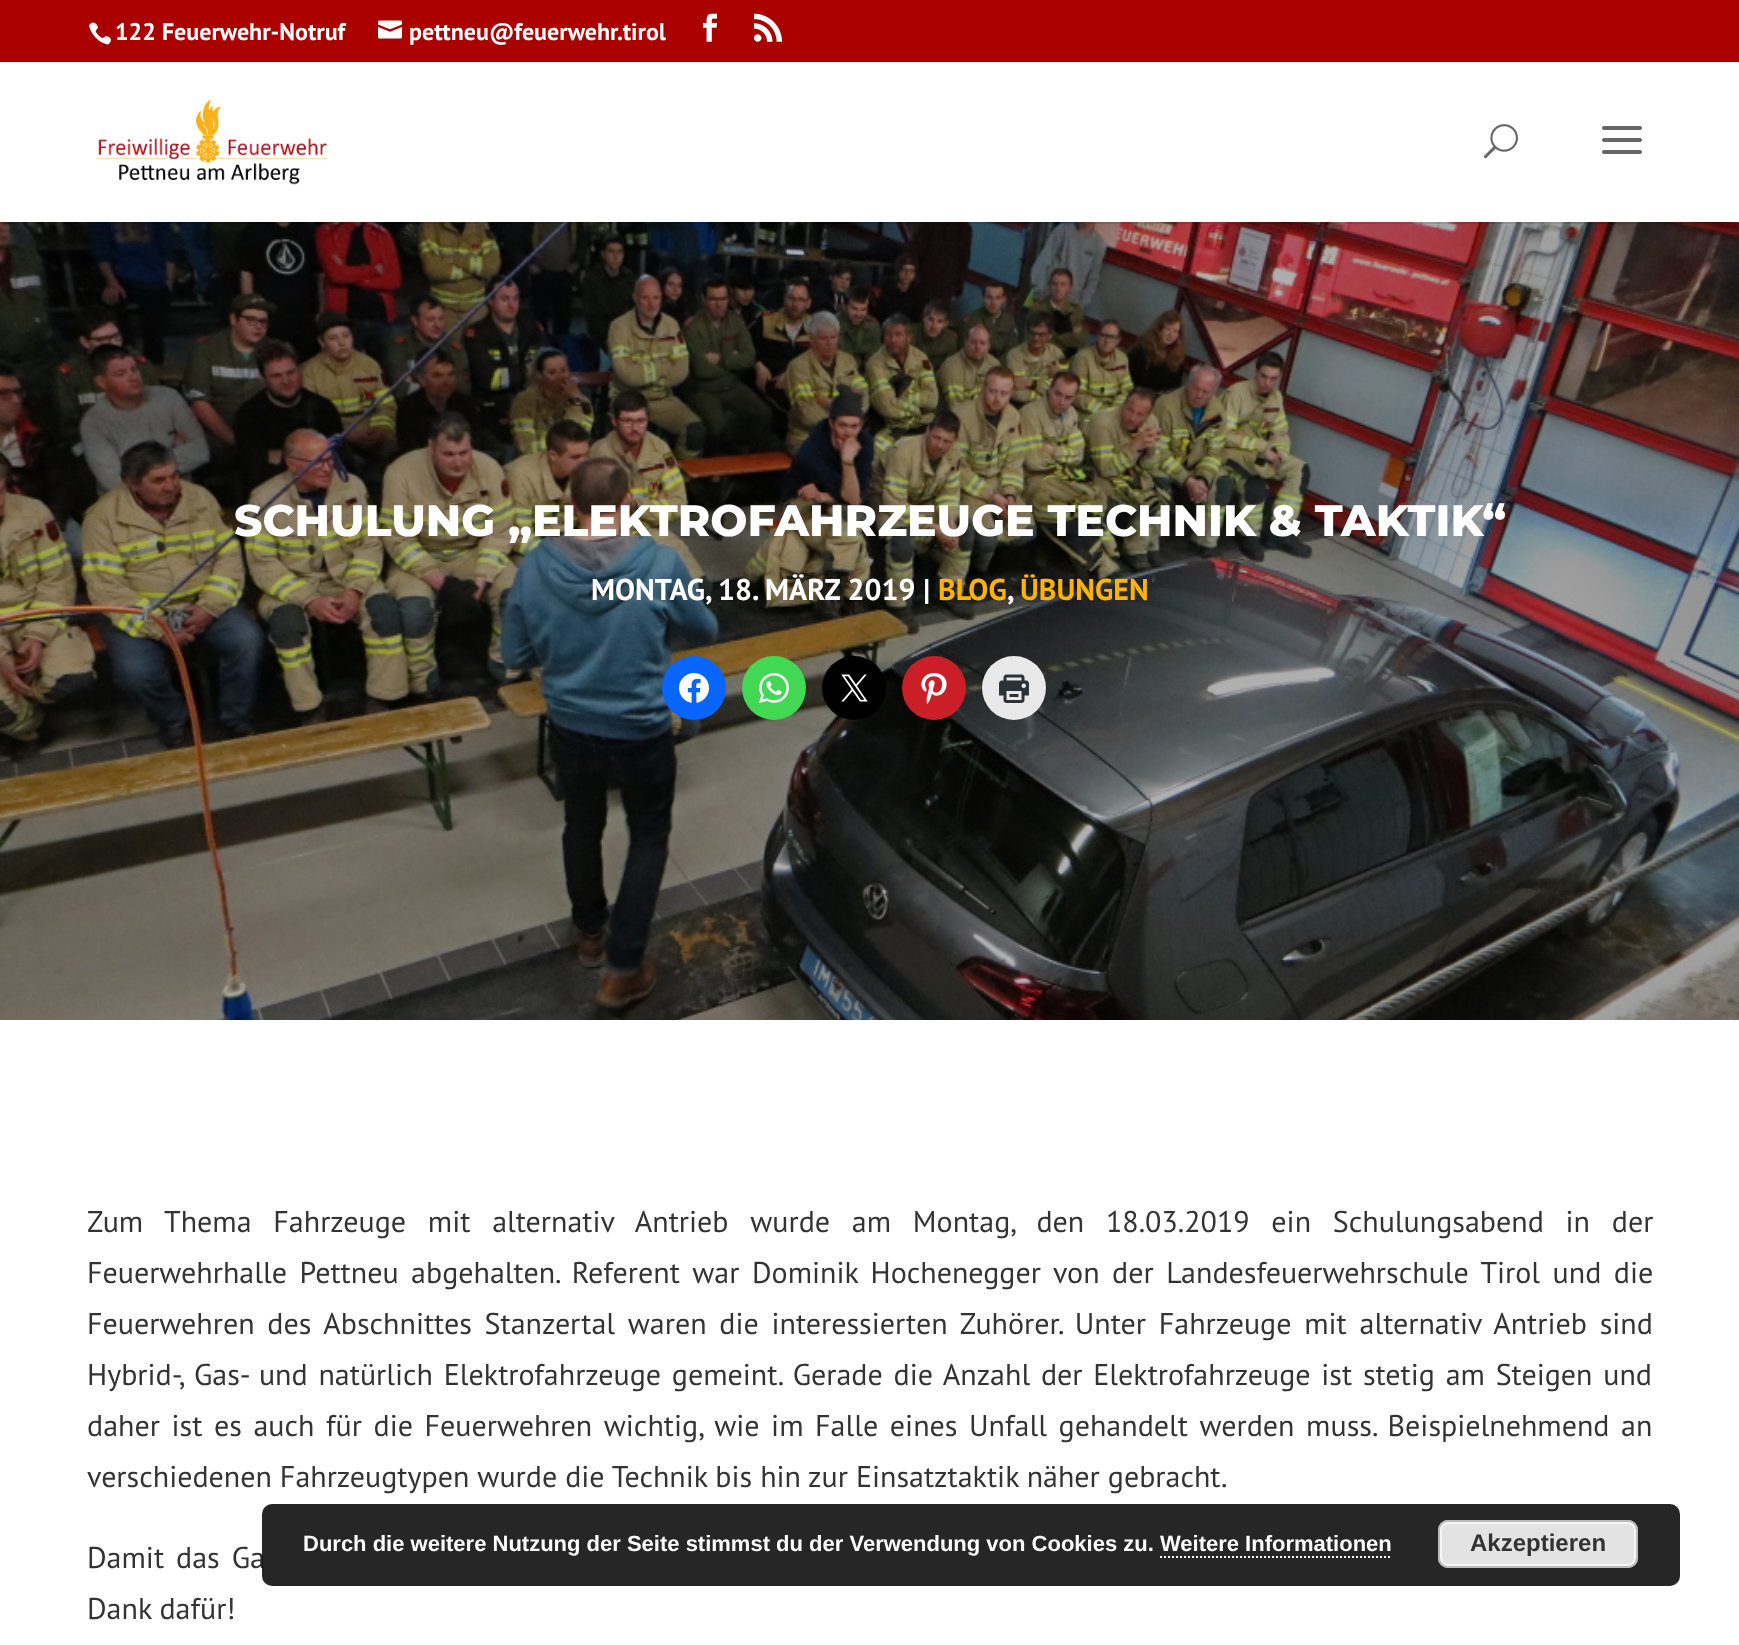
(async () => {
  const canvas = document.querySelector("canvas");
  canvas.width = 1739;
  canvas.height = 1645;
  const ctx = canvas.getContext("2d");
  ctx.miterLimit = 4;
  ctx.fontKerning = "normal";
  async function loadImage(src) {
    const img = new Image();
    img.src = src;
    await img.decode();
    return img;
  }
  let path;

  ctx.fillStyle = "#ffffff";
  ctx.fillRect(0, 0, 1739, 1645);
  ctx.fillStyle = "#aa0000";
  ctx.fillRect(0, 0, 1739, 62);
  ctx.drawImage(await loadImage("img/1.png"), 89, 22, 22, 23);
  ctx.drawImage(await loadImage("img/2.png"), 378, 20, 24, 19);
  ctx.drawImage(await loadImage("img/3.png"), 703, 13, 15, 29);
  ctx.drawImage(await loadImage("img/4.png"), 754, 13, 28, 29);
  ctx.drawImage(await loadImage("img/8.png"), 0, 222, 1739, 798);
  ctx.fillStyle = "rgba(0, 0, 0, 0.1)";
  ctx.fillRect(0, 222, 1739, 2);
  ctx.drawImage(await loadImage("img/5.png"), 96, 99, 232, 86);
  ctx.drawImage(await loadImage("img/6.png"), 1483, 124, 35, 35);
  ctx.drawImage(await loadImage("img/7.png"), 1602, 126, 40, 28);
  ctx.fillStyle = "#0866ff";
  ctx.beginPath();
  ctx.arc(694, 688, 32, 0, Math.PI * 2);
  ctx.fill();
  ctx.drawImage(await loadImage("img/9.png"), 679, 673, 30, 30);
  ctx.fillStyle = "#43d854";
  ctx.beginPath();
  ctx.arc(774, 688, 32, 0, Math.PI * 2);
  ctx.fill();
  ctx.drawImage(await loadImage("img/10.png"), 759, 673, 30, 30);
  ctx.fillStyle = "#000000";
  ctx.beginPath();
  ctx.arc(854, 688, 32, 0, Math.PI * 2);
  ctx.fill();
  ctx.drawImage(await loadImage("img/11.png"), 841, 674, 27, 28);
  ctx.fillStyle = "#ca1f27";
  ctx.beginPath();
  ctx.arc(934, 688, 32, 0, Math.PI * 2);
  ctx.fill();
  ctx.drawImage(await loadImage("img/12.png"), 921, 673, 26, 32);
  ctx.fillStyle = "#e9e9e9";
  ctx.beginPath();
  ctx.arc(1014, 688, 32, 0, Math.PI * 2);
  ctx.fill();
  ctx.drawImage(await loadImage("img/13.png"), 999, 674, 30, 29);
  ctx.font = "bold 24px PT Sans";
  ctx.fillStyle = "#ffffff";
  ctx.fillText("122 Feuerwehr-Notruf", 115, 40);
  ctx.fillText("pettneu@feuerwehr.tirol", 409, 40);
  ctx.font = "800 44px Montserrat";
  ctx.fillText("SCHULUNG „ELEKTROFAHRZEUGE TECHNIK & TAKTIK“", 234, 536);
  ctx.font = "bold 30px PT Sans";
  ctx.fillText("MONTAG, 18. MÄRZ 2019 |", 591, 600);
  ctx.fillStyle = "#ffb207";
  ctx.fillText("BLOG", 938, 600);
  ctx.fillStyle = "#ffffff";
  ctx.fillText(",", 1007, 600);
  ctx.fillStyle = "#ffb207";
  ctx.fillText("ÜBUNGEN", 1020, 600);
  ctx.wordSpacing = "13.75px";
  ctx.font = "30px PT Sans";
  ctx.fillStyle = "#333333";
  ctx.fillText("Zum Thema Fahrzeuge mit alternativ Antrieb wurde am Montag, den 18.03.2019 ein Schulungsabend in der", 87, 1232);
  ctx.wordSpacing = "4.5px";
  ctx.fillText("Feuerwehrhalle Pettneu abgehalten. Referent war Dominik Hochenegger von der Landesfeuerwehrschule Tirol und die", 87, 1283);
  ctx.wordSpacing = "4.75px";
  ctx.fillText("Feuerwehren des Abschnittes Stanzertal waren die interessierten Zuhörer. Unter Fahrzeuge mit alternativ Antrieb sind", 87, 1334);
  ctx.wordSpacing = "2.75px";
  ctx.fillText("Hybrid-, Gas- und natürlich Elektrofahrzeuge gemeint. Gerade die Anzahl der Elektrofahrzeuge ist stetig am Steigen und", 87, 1385);
  ctx.wordSpacing = "3.6px";
  ctx.fillText("daher ist es auch für die Feuerwehren wichtig, wie im Falle eines Unfall gehandelt werden muss. Beispielnehmend an", 87, 1436);
  ctx.wordSpacing = "0px";
  ctx.fillText("verschiedenen Fahrzeugtypen wurde die Technik bis hin zur Einsatztaktik näher gebracht.", 87, 1487);
  ctx.wordSpacing = "4px";
  ctx.fillText("Damit das Ga", 87, 1568);
  ctx.wordSpacing = "0px";
  ctx.fillText("Dank dafür!", 87, 1619);
  ctx.fillStyle = "rgba(0, 0, 0, 0.85)";
  ctx.beginPath();
  ctx.roundRect(262, 1504, 1418, 82, 10);
  ctx.fill();
  ctx.font = "bold 22px Liberation Sans";
  ctx.fillStyle = "#ffffff";
  ctx.fillText("Durch die weitere Nutzung der Seite stimmst du der Verwendung von Cookies zu. Weitere Informationen", 303, 1551);
  ctx.fillStyle = "#e3e3e3";
  ctx.beginPath();
  ctx.roundRect(1438, 1520, 200, 48, 10);
  ctx.fill();
  ctx.beginPath();
  ctx.roundRect(1441, 1523, 194, 42, 7);
  ctx.strokeStyle = "#f6f6f6";
  ctx.lineWidth = 2;
  ctx.stroke();
  ctx.beginPath();
  ctx.roundRect(1439, 1521, 198, 46, 9);
  ctx.strokeStyle = "#bbbbbb";
  ctx.stroke();
  ctx.font = "bold 24px Liberation Sans";
  ctx.fillStyle = "#333333";
  ctx.fillText("Akzeptieren", 1470, 1551);
  path = new Path2D("M1160 1557H1392");
  ctx.strokeStyle = "#ffffff";
  ctx.setLineDash([2, 2]);
  ctx.stroke(path);
})();
